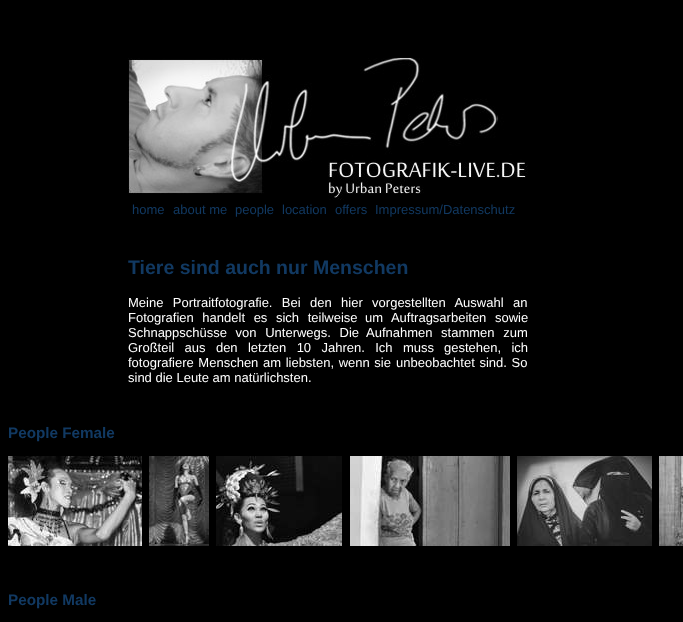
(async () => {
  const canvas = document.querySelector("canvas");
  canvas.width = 683;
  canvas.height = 622;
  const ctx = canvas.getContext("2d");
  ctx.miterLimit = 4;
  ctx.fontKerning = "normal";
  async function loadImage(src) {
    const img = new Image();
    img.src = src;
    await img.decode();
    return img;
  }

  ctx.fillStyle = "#000000";
  ctx.fillRect(0, 0, 683, 622);
  ctx.drawImage(await loadImage("img/1.png"), 128, 57, 400, 143);
  ctx.drawImage(await loadImage("img/2.png"), 8, 456, 134, 90);
  ctx.drawImage(await loadImage("img/3.png"), 149, 456, 60, 90);
  ctx.drawImage(await loadImage("img/4.png"), 216, 456, 126, 90);
  ctx.drawImage(await loadImage("img/5.png"), 350, 456, 160, 90);
  ctx.drawImage(await loadImage("img/6.png"), 517, 456, 135, 90);
  ctx.drawImage(await loadImage("img/7.png"), 659, 456, 24, 90);
  ctx.font = "13px Liberation Sans";
  ctx.fillStyle = "#113962";
  for (const [text, x, y] of [
    ["home", 132, 214],
    ["about me", 173, 214],
    ["people", 235, 214],
    ["location", 282, 214],
    ["offers", 335, 214],
    ["Impressum/Datenschutz", 375, 214],
  ]) {
    ctx.fillText(text, x, y);
  }
  ctx.font = "bold 19.5px Liberation Sans";
  ctx.fillText("Tiere sind auch nur Menschen", 128, 274);
  ctx.wordSpacing = "5.75px";
  ctx.font = "13px Liberation Sans";
  ctx.fillStyle = "#ffffff";
  ctx.fillText("Meine Portraitfotografie. Bei den hier vorgestellten Auswahl an", 128, 307);
  ctx.wordSpacing = "5px";
  for (const [text, x, y] of [
    ["Fotografien handelt es sich teilweise", 128, 322],
    ["um Auftragsarbeiten sowie", 365, 322],
    ["Schnappschüsse von Unterwegs. Die", 128, 337],
    ["Aufnahmen stammen zum", 366, 337],
  ]) {
    ctx.fillText(text, x, y);
  }
  ctx.wordSpacing = "6.75px";
  ctx.fillText("Großteil aus den letzten 10 Jahren. Ich muss", 128, 352);
  ctx.fillText("gestehen, ich", 444, 352);
  ctx.wordSpacing = "1px";
  ctx.fillText("fotografiere Menschen am liebsten, wenn sie", 128, 367);
  ctx.fillText("unbeobachtet sind. So", 396, 367);
  ctx.wordSpacing = "0px";
  ctx.fillText("sind die Leute am natürlichsten.", 128, 382);
  ctx.font = "bold 15.25px Liberation Sans";
  ctx.fillStyle = "#113962";
  ctx.fillText("People Female", 8, 438);
  ctx.fillText("People Male", 8, 605);
})();
